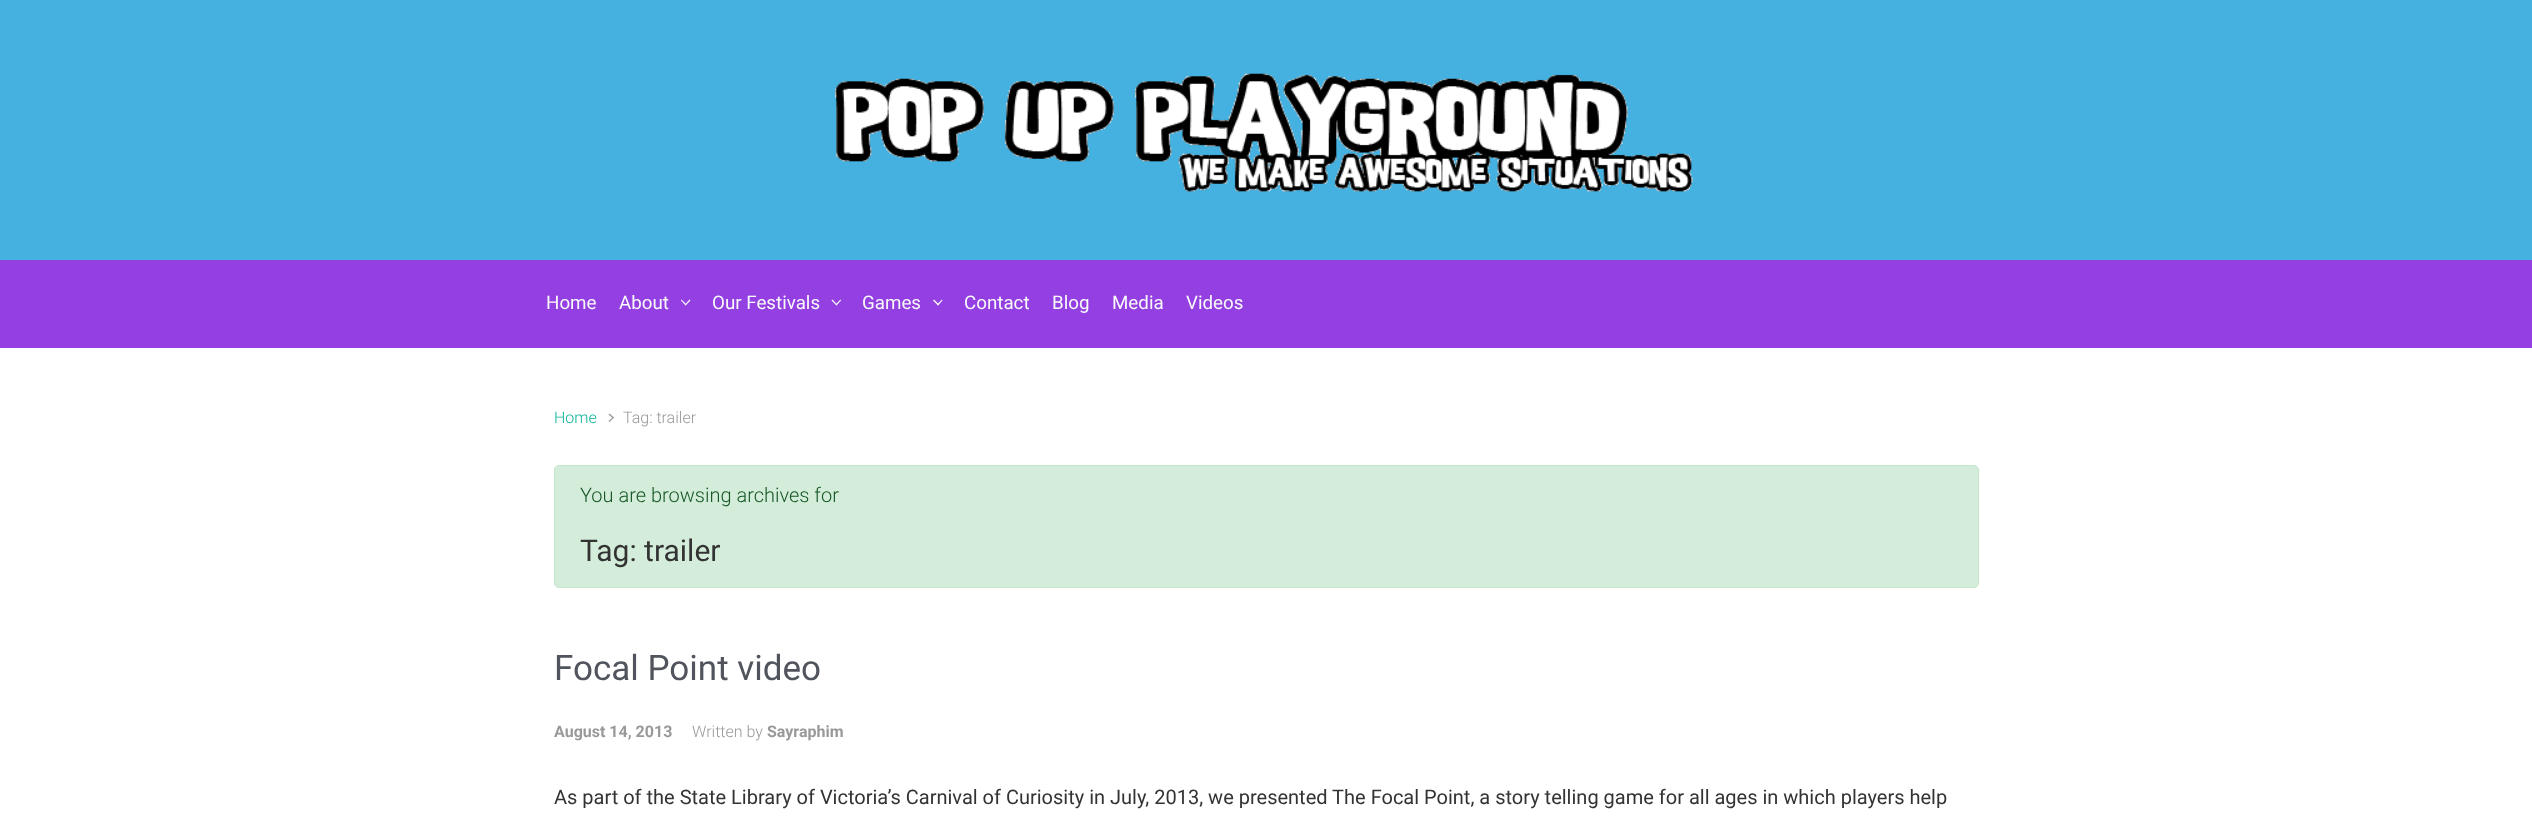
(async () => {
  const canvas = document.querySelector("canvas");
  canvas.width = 2532;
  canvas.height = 825;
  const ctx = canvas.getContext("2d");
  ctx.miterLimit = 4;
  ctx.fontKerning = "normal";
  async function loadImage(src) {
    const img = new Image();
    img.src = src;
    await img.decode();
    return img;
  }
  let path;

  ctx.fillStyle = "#45b1e0";
  ctx.fillRect(0, 0, 2532, 825);
  ctx.drawImage(await loadImage("img/1.png"), 834, 73, 859, 119);
  ctx.fillStyle = "#933fe2";
  ctx.fillRect(0, 260, 2532, 88);
  ctx.fillStyle = "#f9f9f9";
  path = new Path2D("M689.5 299.5L690.5 300.5L685.5 305.5L685 304.5Z");
  ctx.fill(path);
  path = new Path2D("M681.5 299.5L686.5 304.5L685.5 305.5L681 300.5Z");
  ctx.fill(path);
  path = new Path2D("M840.5 299.5L841 300.5L836.5 305.5L835.5 304.5Z");
  ctx.fill(path);
  path = new Path2D("M832.5 299.5L837 304.5L836.5 305.5L831.5 300.5Z");
  ctx.fill(path);
  path = new Path2D("M942 299.5L942.5 300.5L938 305.5L937 304.5Z");
  ctx.fill(path);
  path = new Path2D("M934 299.5L939 304.5L938 305.5L933 300.5Z");
  ctx.fill(path);
  ctx.fillStyle = "#ffffff";
  ctx.fillRect(0, 348, 2532, 477);
  ctx.fillStyle = "#999999";
  path = new Path2D("M608.5 414.5L609.5 413.5L614 417.5L613 418.5Z");
  ctx.fill(path);
  path = new Path2D("M608.5 421L613 417L614 417.5L609.5 422Z");
  ctx.fill(path);
  ctx.fillStyle = "#d4edda";
  ctx.beginPath();
  ctx.roundRect(554.5, 465.5, 1424, 122, 4.5);
  ctx.fill();
  ctx.strokeStyle = "#c3e6cb";
  ctx.stroke();
  ctx.font = "18.75px Roboto";
  ctx.fillStyle = "#f9f9f9";
  for (const [text, x, y] of [
    ["Home", 546, 309],
    ["About", 619, 309],
    ["Our Festivals", 712, 309],
    ["Games", 862, 309],
    ["Contact", 964, 309],
    ["Blog", 1052, 309],
    ["Media", 1112, 309],
    ["Videos", 1186, 309],
  ]) {
    ctx.fillText(text, x, y);
  }
  ctx.font = "300 16px Roboto";
  ctx.fillStyle = "#0bb697";
  ctx.fillText("Home", 554, 423);
  ctx.fillStyle = "#999999";
  ctx.fillText("Tag: trailer", 623, 423);
  ctx.font = "300 20px Roboto";
  ctx.fillStyle = "#155724";
  ctx.fillText("You are browsing archives for", 580, 502);
  ctx.font = "30px Roboto";
  ctx.fillStyle = "#333333";
  ctx.fillText("Tag: trailer", 580, 561);
  ctx.font = "35px Roboto";
  ctx.fillStyle = "#51545c";
  ctx.fillText("Focal Point video", 554, 680);
  ctx.font = "bold 16px Roboto";
  ctx.fillStyle = "#999999";
  ctx.fillText("August 14, 2013", 554, 737);
  ctx.font = "300 16px Roboto";
  ctx.fillText("Written by", 692, 737);
  ctx.font = "bold 16px Roboto";
  ctx.fillText("Sayraphim", 767, 737);
  ctx.font = "20px Roboto";
  ctx.fillStyle = "#333333";
  ctx.fillText("As part of the State Library of Victoria’s Carnival of Curiosity in July, 2013, we presented The Focal Point, a story telling game for all ages in which players help", 554, 804);
})();
